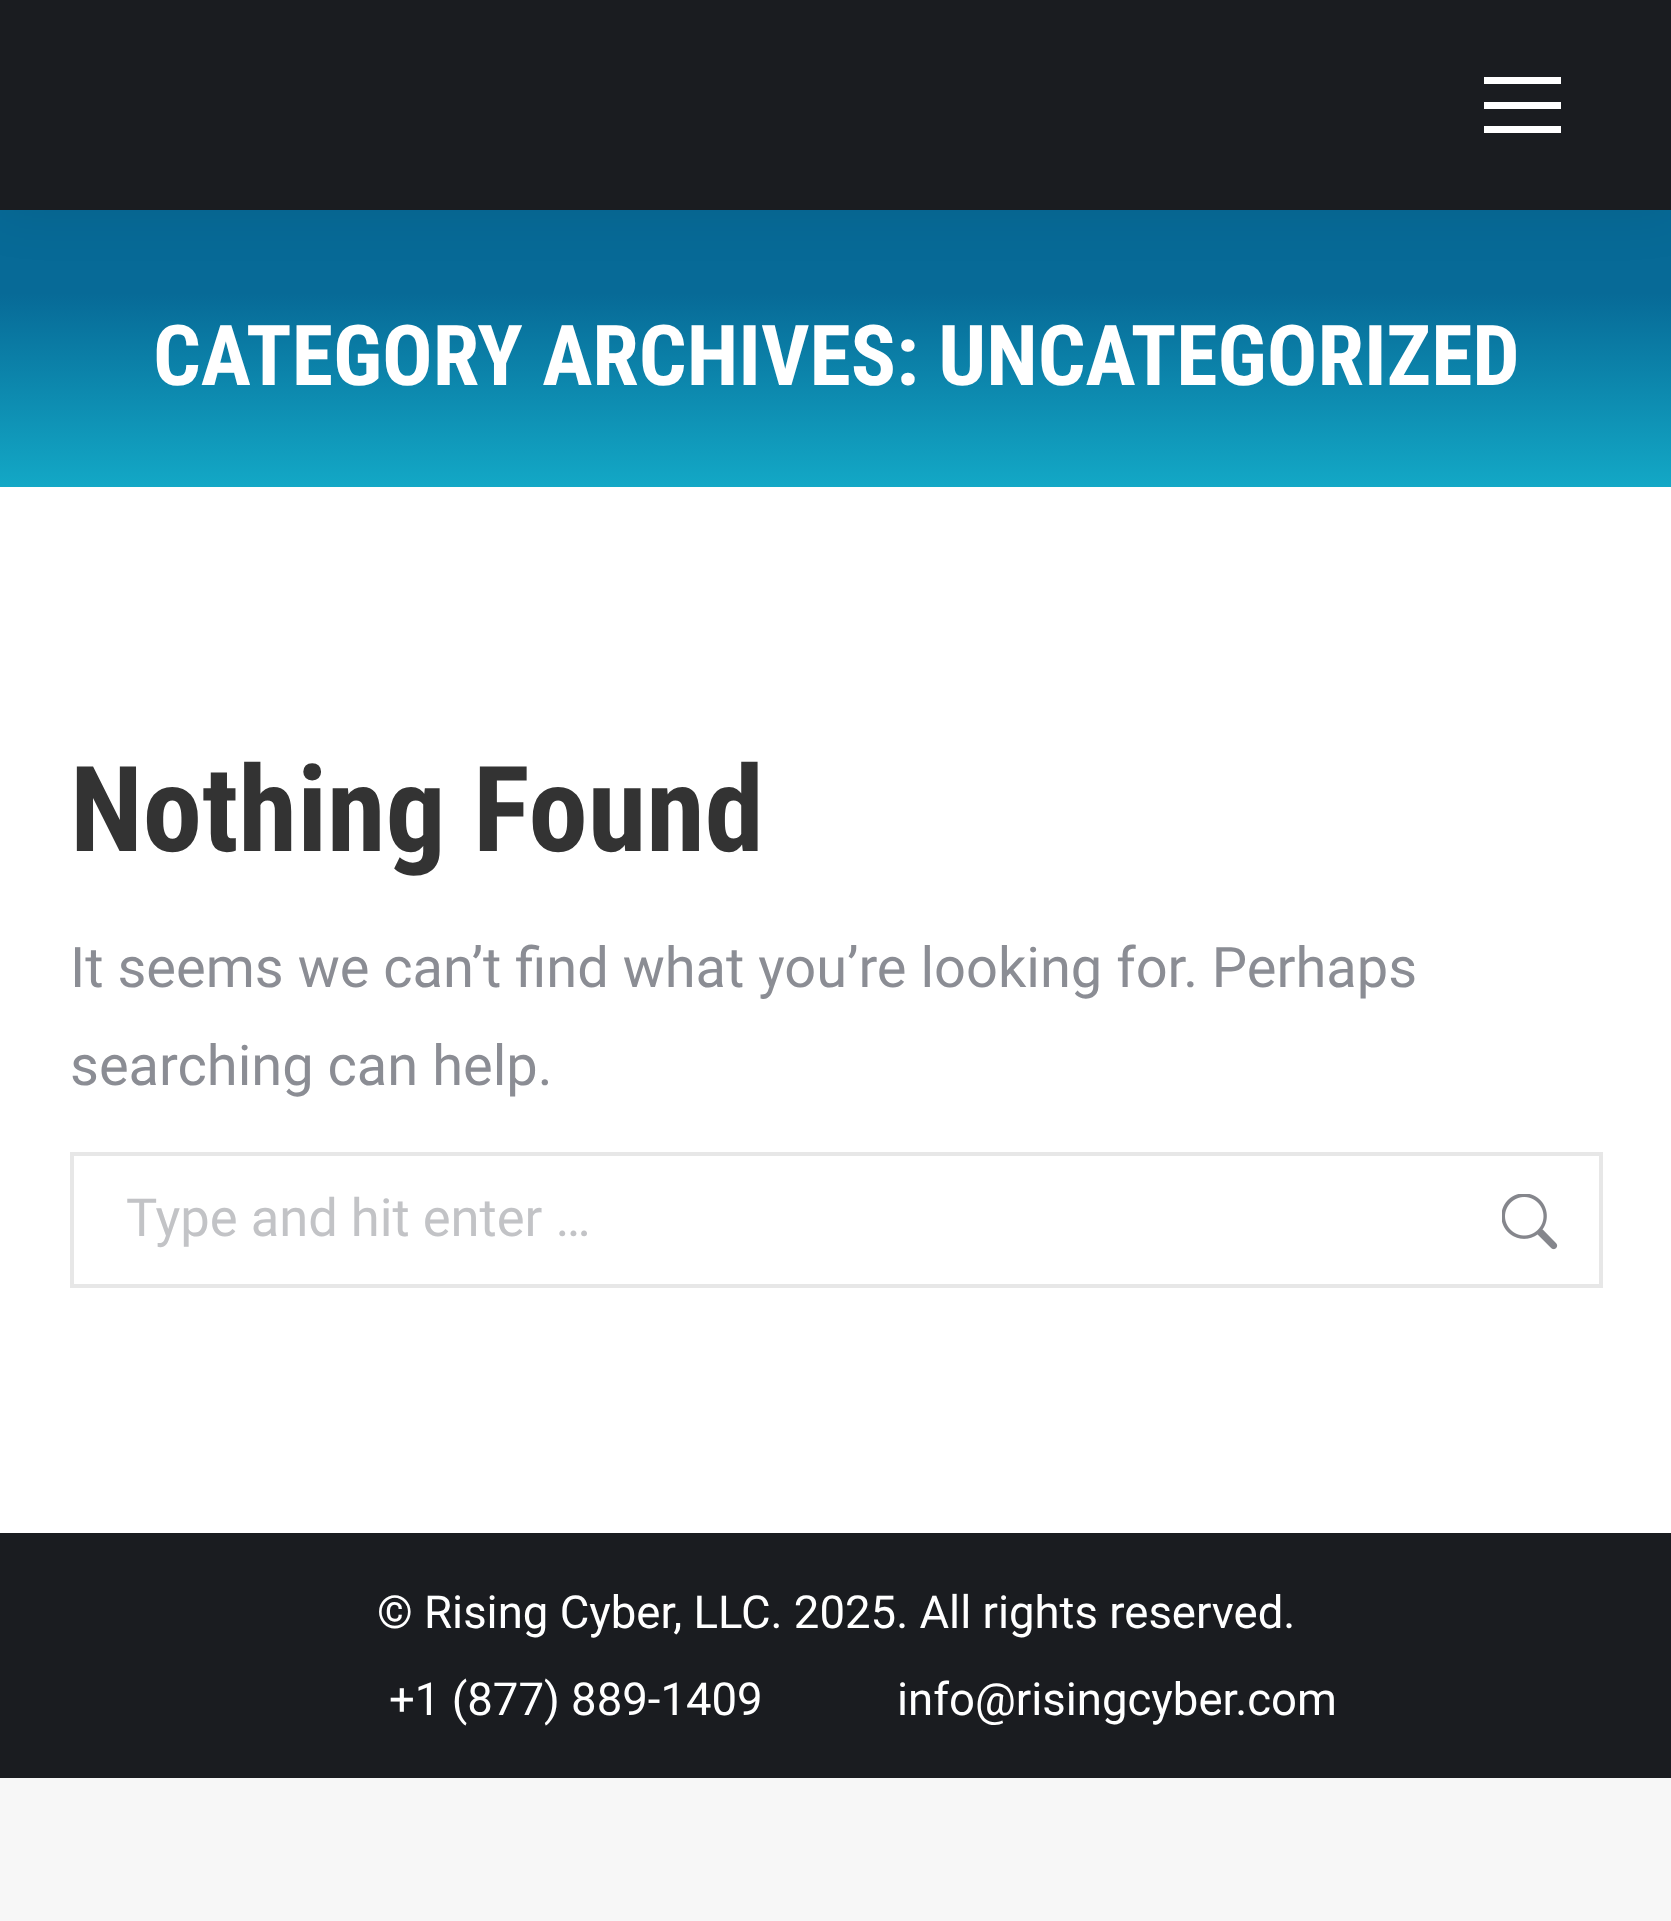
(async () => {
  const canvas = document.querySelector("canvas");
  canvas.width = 1671;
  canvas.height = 1921;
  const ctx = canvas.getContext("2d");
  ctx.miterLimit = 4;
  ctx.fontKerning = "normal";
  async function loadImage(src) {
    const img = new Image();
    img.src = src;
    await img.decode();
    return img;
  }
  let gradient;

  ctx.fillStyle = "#f7f7f7";
  ctx.fillRect(0, 0, 1671, 1921);
  ctx.fillStyle = "#ffffff";
  ctx.fillRect(0, 487, 1671, 1046);
  gradient = ctx.createLinearGradient(837, 210, 837, 487);
  gradient.addColorStop(0.3, "#076a97");
  gradient.addColorStop(1, "#13a8c6");
  ctx.fillStyle = gradient;
  ctx.fillRect(0, 210, 1671, 277);
  ctx.fillStyle = "rgba(0, 0, 0, 0.07)";
  ctx.filter = "blur(26px)";
  ctx.beginPath();
  ctx.rect(-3, -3, 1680, 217);
  ctx.fill();
  ctx.filter = "none";
  for (const [x, y, w, h, color] of [
    [0, 0, 1671, 210, "#1a1c20"],
    [1484, 77, 77, 7, "#ffffff"],
    [1484, 102, 77, 7, "#ffffff"],
    [1484, 126, 77, 7, "#ffffff"],
  ]) {
    ctx.fillStyle = color;
    ctx.fillRect(x, y, w, h);
  }
  ctx.strokeStyle = "#e7e7e7";
  ctx.lineWidth = 4;
  ctx.strokeRect(72, 1154, 1529, 132);
  ctx.drawImage(await loadImage("img/1.png"), 1502, 1194, 56, 56);
  ctx.fillStyle = "#1a1c20";
  ctx.fillRect(0, 1533, 1671, 245);
  ctx.font = "bold 84px Roboto Condensed";
  ctx.fillStyle = "#ffffff";
  ctx.fillText("CATEGORY ARCHIVES: UNCATEGORIZED", 153, 385);
  ctx.font = "bold 119px Roboto Condensed";
  ctx.fillStyle = "#333333";
  ctx.fillText("Nothing Found", 70, 851);
  ctx.font = "56px Roboto";
  ctx.fillStyle = "#8b8d94";
  ctx.fillText("It seems we can’t find what you’re looking for. Perhaps", 70, 987);
  ctx.fillText("searching can help.", 70, 1085);
  ctx.font = "52.5px Roboto";
  ctx.fillStyle = "#c2c3c6";
  ctx.fillText("Type and hit enter …", 126, 1236);
  ctx.font = "45.5px Roboto";
  ctx.fillStyle = "#ffffff";
  for (const [text, x, y] of [
    ["© Rising Cyber, LLC. 2025. All rights reserved.", 377, 1628],
    ["+1 (877) 889-1409", 389, 1715],
    ["info@risingcyber.com", 897, 1715],
  ]) {
    ctx.fillText(text, x, y);
  }
})();
